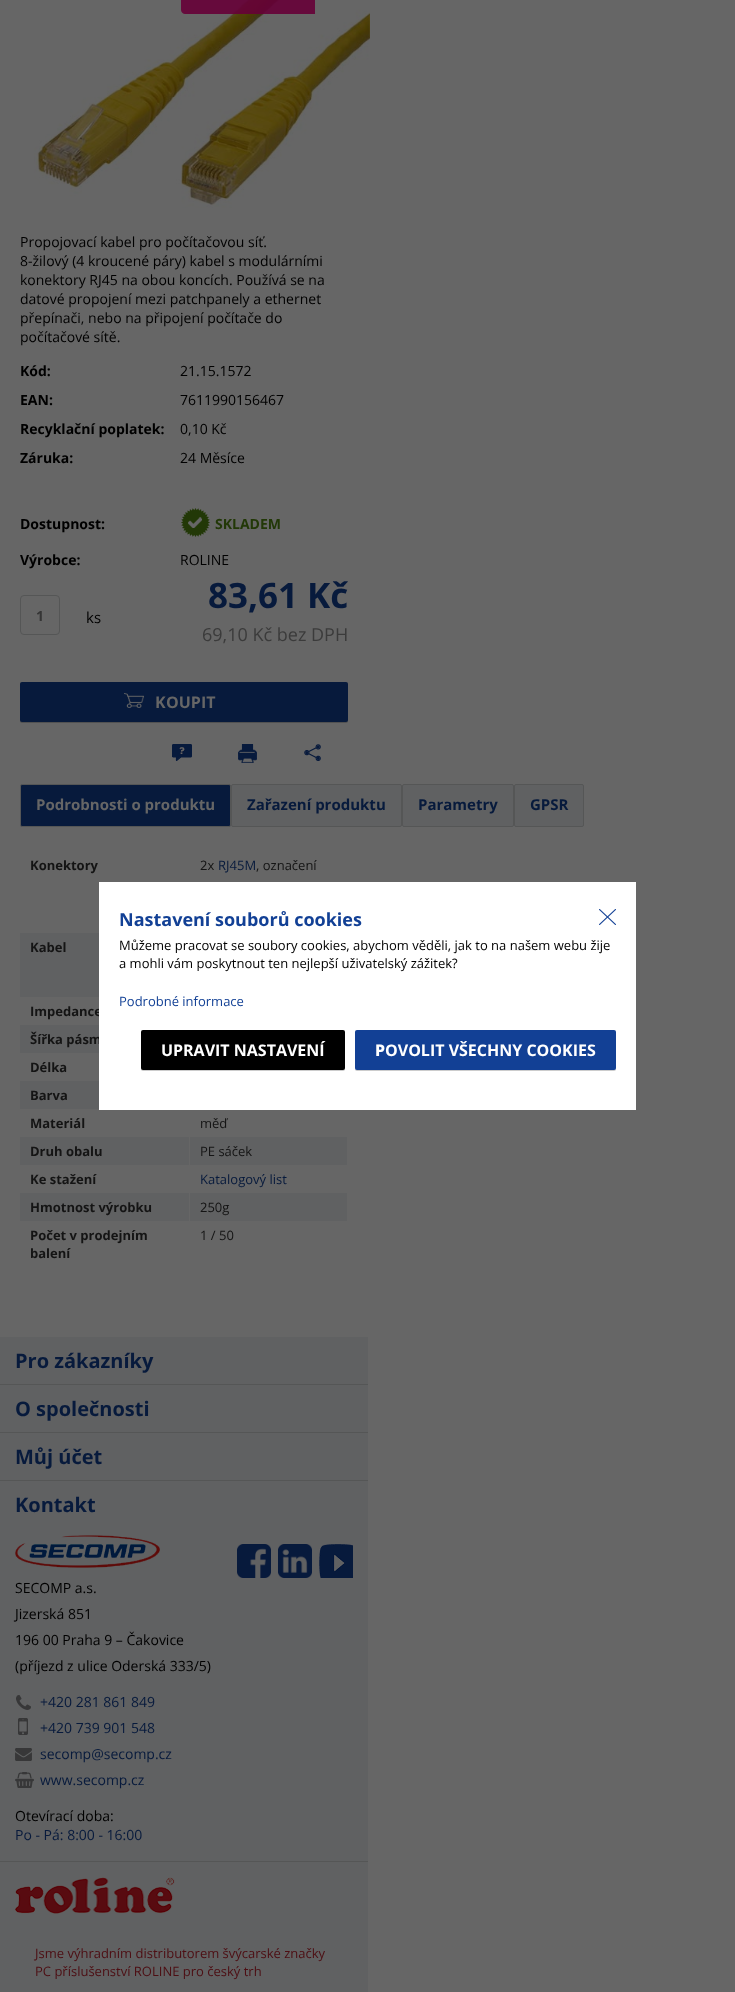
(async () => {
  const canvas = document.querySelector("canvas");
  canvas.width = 735;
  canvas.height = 1992;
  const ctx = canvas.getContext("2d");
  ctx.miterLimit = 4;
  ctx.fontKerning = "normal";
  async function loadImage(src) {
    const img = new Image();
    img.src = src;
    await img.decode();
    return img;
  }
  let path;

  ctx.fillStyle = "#666666";
  ctx.fillRect(0, 0, 735, 1992);
  ctx.drawImage(await loadImage("img/1.png"), 34, 0, 336, 208);
  ctx.fillStyle = "rgba(102, 0, 55, 0.9)";
  path = new Path2D("M185-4H311C313-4 315-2 315 0V14H185C183 14 181 12 181 10V0C181-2 183-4 185-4Z");
  ctx.fill(path);
  ctx.drawImage(await loadImage("img/2.png"), 181, 508, 29, 29);
  ctx.beginPath();
  ctx.roundRect(20.5, 595.5, 39, 39, 3.5);
  ctx.strokeStyle = "#555656";
  ctx.stroke();
  ctx.fillStyle = "rgba(0, 0, 0, 0.2)";
  ctx.filter = "blur(0.5px)";
  ctx.beginPath();
  ctx.roundRect(20, 683, 328, 40, 2);
  ctx.fill();
  ctx.filter = "none";
  ctx.fillStyle = "#071a3c";
  ctx.beginPath();
  ctx.roundRect(20, 682, 328, 40, 2);
  ctx.fill();
  ctx.drawImage(await loadImage("img/3.png"), 124, 693, 20, 15);
  ctx.drawImage(await loadImage("img/4.png"), 172, 744, 20, 17);
  ctx.drawImage(await loadImage("img/5.png"), 238, 744, 19, 19);
  ctx.drawImage(await loadImage("img/6.png"), 304, 744, 17, 17);
  ctx.beginPath();
  ctx.roundRect(20.5, 784.5, 210, 42, 1.5);
  ctx.fill();
  ctx.stroke();
  ctx.fillStyle = "#606162";
  ctx.beginPath();
  ctx.roundRect(231.5, 784.5, 170, 42, 1.5);
  ctx.fill();
  ctx.stroke();
  ctx.beginPath();
  ctx.roundRect(402.5, 784.5, 111, 42, 1.5);
  ctx.fill();
  ctx.stroke();
  ctx.beginPath();
  ctx.roundRect(514.5, 784.5, 69, 42, 1.5);
  ctx.fill();
  ctx.stroke();
  for (const [x, y, w, h, color] of [
    [20, 933, 79, 64, "#606162"],
    [20, 1025, 79, 28, "#606162"],
    [20, 1081, 79, 28, "#606162"],
    [20, 1137, 169, 28, "#606162"],
    [190, 1137, 157, 28, "#606162"],
    [20, 1193, 169, 28, "#606162"],
    [190, 1193, 157, 28, "#606162"],
    [0, 1337, 368, 655, "#606162"],
    [0, 1384, 368, 1, "#555656"],
    [0, 1432, 368, 1, "#555656"],
    [0, 1480, 368, 1, "#555656"],
  ]) {
    ctx.fillStyle = color;
    ctx.fillRect(x, y, w, h);
  }
  ctx.drawImage(await loadImage("img/7.png"), 15, 1535, 145, 33);
  ctx.drawImage(await loadImage("img/8.png"), 237, 1544, 34, 34);
  ctx.drawImage(await loadImage("img/9.png"), 278, 1544, 34, 34);
  ctx.drawImage(await loadImage("img/10.png"), 319, 1544, 34, 34);
  ctx.drawImage(await loadImage("img/11.png"), 16, 1695, 15, 15);
  ctx.drawImage(await loadImage("img/12.png"), 18, 1718, 10, 17);
  ctx.drawImage(await loadImage("img/13.png"), 15, 1748, 17, 13);
  ctx.drawImage(await loadImage("img/14.png"), 15, 1772, 19, 16);
  ctx.fillRect(0, 1861, 368, 1);
  ctx.drawImage(await loadImage("img/15.png"), 15, 1877, 160, 37);
  ctx.font = "14px Open Sans";
  ctx.fillStyle = "#000000";
  for (const [text, x, y] of [
    ["Propojovací kabel pro počítačovou síť.", 20, 247],
    ["8-žilový (4 kroucené páry) kabel s modulárními", 20, 266],
    ["konektory RJ45 na obou koncích. Používá se na", 20, 285],
    ["datové propojení mezi patchpanely a ethernet", 20, 304],
    ["přepínači, nebo na připojení počítače do", 20, 323],
    ["počítačové sítě.", 20, 342],
  ]) {
    ctx.fillText(text, x, y);
  }
  ctx.font = "bold 14px Open Sans";
  ctx.fillText("Kód:", 20, 376);
  ctx.font = "14px Open Sans";
  ctx.fillText("21.15.1572", 180, 376);
  ctx.font = "bold 14px Open Sans";
  ctx.fillText("EAN:", 20, 405);
  ctx.font = "14px Open Sans";
  ctx.fillText("7611990156467", 180, 405);
  ctx.font = "bold 14px Open Sans";
  ctx.fillText("Recyklační poplatek:", 20, 434);
  ctx.font = "14px Open Sans";
  ctx.fillText("0,10 Kč", 180, 434);
  ctx.font = "bold 14px Open Sans";
  ctx.fillText("Záruka:", 20, 463);
  ctx.font = "14px Open Sans";
  ctx.fillText("24 Měsíce", 180, 463);
  ctx.font = "bold 14px Open Sans";
  ctx.fillText("Dostupnost:", 20, 529);
  ctx.fillStyle = "#223807";
  ctx.fillText("SKLADEM", 215, 529);
  ctx.fillStyle = "#000000";
  ctx.fillText("Výrobce:", 20, 565);
  ctx.font = "14px Open Sans";
  ctx.fillText("ROLINE", 180, 565);
  ctx.font = "bold 35px Open Sans";
  ctx.fillStyle = "#071a3c";
  ctx.fillText("83,61 Kč", 208, 608);
  ctx.font = "bold 14px Open Sans";
  ctx.fillStyle = "#353535";
  ctx.fillText("1", 36, 621);
  ctx.font = "15px Open Sans";
  ctx.fillStyle = "#000000";
  ctx.fillText("ks", 86, 623);
  ctx.font = "bold 16px Noto Sans";
  ctx.fillStyle = "#666666";
  ctx.fillText("K", 155, 708);
  ctx.font = "bold 16px Open Sans";
  ctx.fillText("OUPIT", 166, 708);
  ctx.font = "18px Open Sans";
  ctx.fillStyle = "#3b3b3b";
  ctx.fillText("69,10 Kč bez DPH", 202, 641);
  ctx.font = "bold 15px Open Sans";
  ctx.fillStyle = "#666666";
  ctx.fillText("Podrobnosti o produktu", 36, 810);
  ctx.fillStyle = "#071a3c";
  for (const [text, x, y] of [
    ["Zařazení produktu", 247, 810],
    ["Parametry", 418, 810],
    ["GPSR", 530, 810],
  ]) {
    ctx.fillText(text, x, y);
  }
  ctx.font = "bold 13px Open Sans";
  ctx.fillStyle = "#141414";
  ctx.fillText("Konektory", 30, 870);
  ctx.font = "13px Open Sans";
  ctx.fillText("2x", 200, 870);
  ctx.fillStyle = "#071a3c";
  ctx.fillText("RJ45M", 218, 870);
  ctx.fillStyle = "#141414";
  ctx.fillText(", označení", 256, 870);
  ctx.font = "bold 13px Open Sans";
  for (const [text, x, y] of [
    ["Kabel", 30, 952],
    ["Impedance", 30, 1016],
    ["Šířka pásm", 30, 1044],
    ["Délka", 30, 1072],
    ["Barva", 30, 1100],
    ["Materiál", 30, 1128],
  ]) {
    ctx.fillText(text, x, y);
  }
  ctx.font = "13px Open Sans";
  ctx.fillText("měď", 200, 1128);
  ctx.font = "bold 13px Open Sans";
  ctx.fillText("Druh obalu", 30, 1156);
  ctx.font = "13px Open Sans";
  ctx.fillText("PE sáček", 200, 1156);
  ctx.font = "bold 13px Open Sans";
  ctx.fillText("Ke stažení", 30, 1184);
  ctx.font = "13px Open Sans";
  ctx.fillStyle = "#071a3c";
  ctx.fillText("Katalogový list", 200, 1184);
  ctx.font = "bold 13px Open Sans";
  ctx.fillStyle = "#141414";
  ctx.fillText("Hmotnost výrobku", 30, 1212);
  ctx.font = "13px Open Sans";
  ctx.fillText("250g", 200, 1212);
  ctx.font = "bold 13px Open Sans";
  ctx.fillText("Počet v prodejním", 30, 1240);
  ctx.fillText("balení", 30, 1258);
  ctx.font = "13px Open Sans";
  ctx.fillText("1 / 50", 200, 1240);
  ctx.font = "bold 20px Open Sans";
  ctx.fillStyle = "#071a3c";
  for (const [text, x, y] of [
    ["Pro zákazníky", 15, 1368],
    ["O společnosti", 15, 1416],
    ["Můj účet", 15, 1464],
    ["Kontakt", 15, 1512],
  ]) {
    ctx.fillText(text, x, y);
  }
  ctx.font = "14px Open Sans";
  ctx.fillStyle = "#000000";
  for (const [text, x, y] of [
    ["SECOMP a.s.", 15, 1593],
    ["Jizerská 851", 15, 1619],
    ["196 00 Praha 9 – Čakovice", 15, 1645],
    ["(příjezd z ulice Oderská 333/5)", 15, 1671],
  ]) {
    ctx.fillText(text, x, y);
  }
  ctx.fillStyle = "#071a3c";
  for (const [text, x, y] of [
    ["+420 281 861 849", 40, 1707],
    ["+420 739 901 548", 40, 1733],
    ["secomp@secomp.cz", 40, 1759],
    ["www.secomp.cz", 40, 1785],
  ]) {
    ctx.fillText(text, x, y);
  }
  ctx.fillStyle = "#000000";
  ctx.fillText("Otevírací doba:", 15, 1821);
  ctx.fillStyle = "#071a3c";
  ctx.fillText("Po - Pá: 8:00 - 16:00", 15, 1840);
  ctx.font = "13px Open Sans";
  ctx.fillStyle = "#4d0e13";
  ctx.fillText("Jsme výhradním distributorem švýcarské značky", 35, 1958);
  ctx.fillText("PC příslušenství ROLINE pro český trh", 35, 1976);
  ctx.fillStyle = "#ffffff";
  ctx.fillRect(99, 882, 537, 228);
  ctx.drawImage(await loadImage("img/16.png"), 599, 909, 17, 16);
  ctx.font = "bold 18px Open Sans";
  ctx.fillStyle = "#124095";
  ctx.fillText("Nastavení souborů cookies", 119, 926);
  ctx.font = "13px Open Sans";
  ctx.fillStyle = "#000000";
  ctx.fillText("Můžeme pracovat se soubory cookies, abychom věděli, jak to na našem webu žije", 119, 950);
  ctx.fillText("a mohli vám poskytnout ten nejlepší uživatelský zážitek?", 119, 968);
  ctx.fillStyle = "#124095";
  ctx.fillText("Podrobné informace", 119, 1006);
  ctx.fillStyle = "rgba(0, 0, 0, 0.2)";
  ctx.filter = "blur(0.5px)";
  ctx.beginPath();
  ctx.roundRect(141, 1031, 204, 40, 2);
  ctx.fill();
  ctx.filter = "none";
  ctx.fillStyle = "#000000";
  ctx.beginPath();
  ctx.roundRect(141, 1030, 204, 40, 2);
  ctx.fill();
  ctx.font = "bold 16px Noto Sans";
  ctx.fillStyle = "#ffffff";
  ctx.fillText("U", 161, 1056);
  ctx.font = "bold 16px Open Sans";
  ctx.fillText("PRAVIT NASTAVENÍ", 173, 1056);
  ctx.fillStyle = "rgba(0, 0, 0, 0.2)";
  ctx.filter = "blur(0.5px)";
  ctx.beginPath();
  ctx.roundRect(355, 1031, 261, 40, 2);
  ctx.fill();
  ctx.filter = "none";
  ctx.fillStyle = "#124095";
  ctx.beginPath();
  ctx.roundRect(355, 1030, 261, 40, 2);
  ctx.fill();
  ctx.font = "800 16px Noto Sans";
  ctx.fillStyle = "#ffffff";
  ctx.fillText("P", 375, 1056);
  ctx.font = "bold 16px Open Sans";
  ctx.fillText("OVOLIT VŠECHNY COOKIES", 385, 1056);
})();
